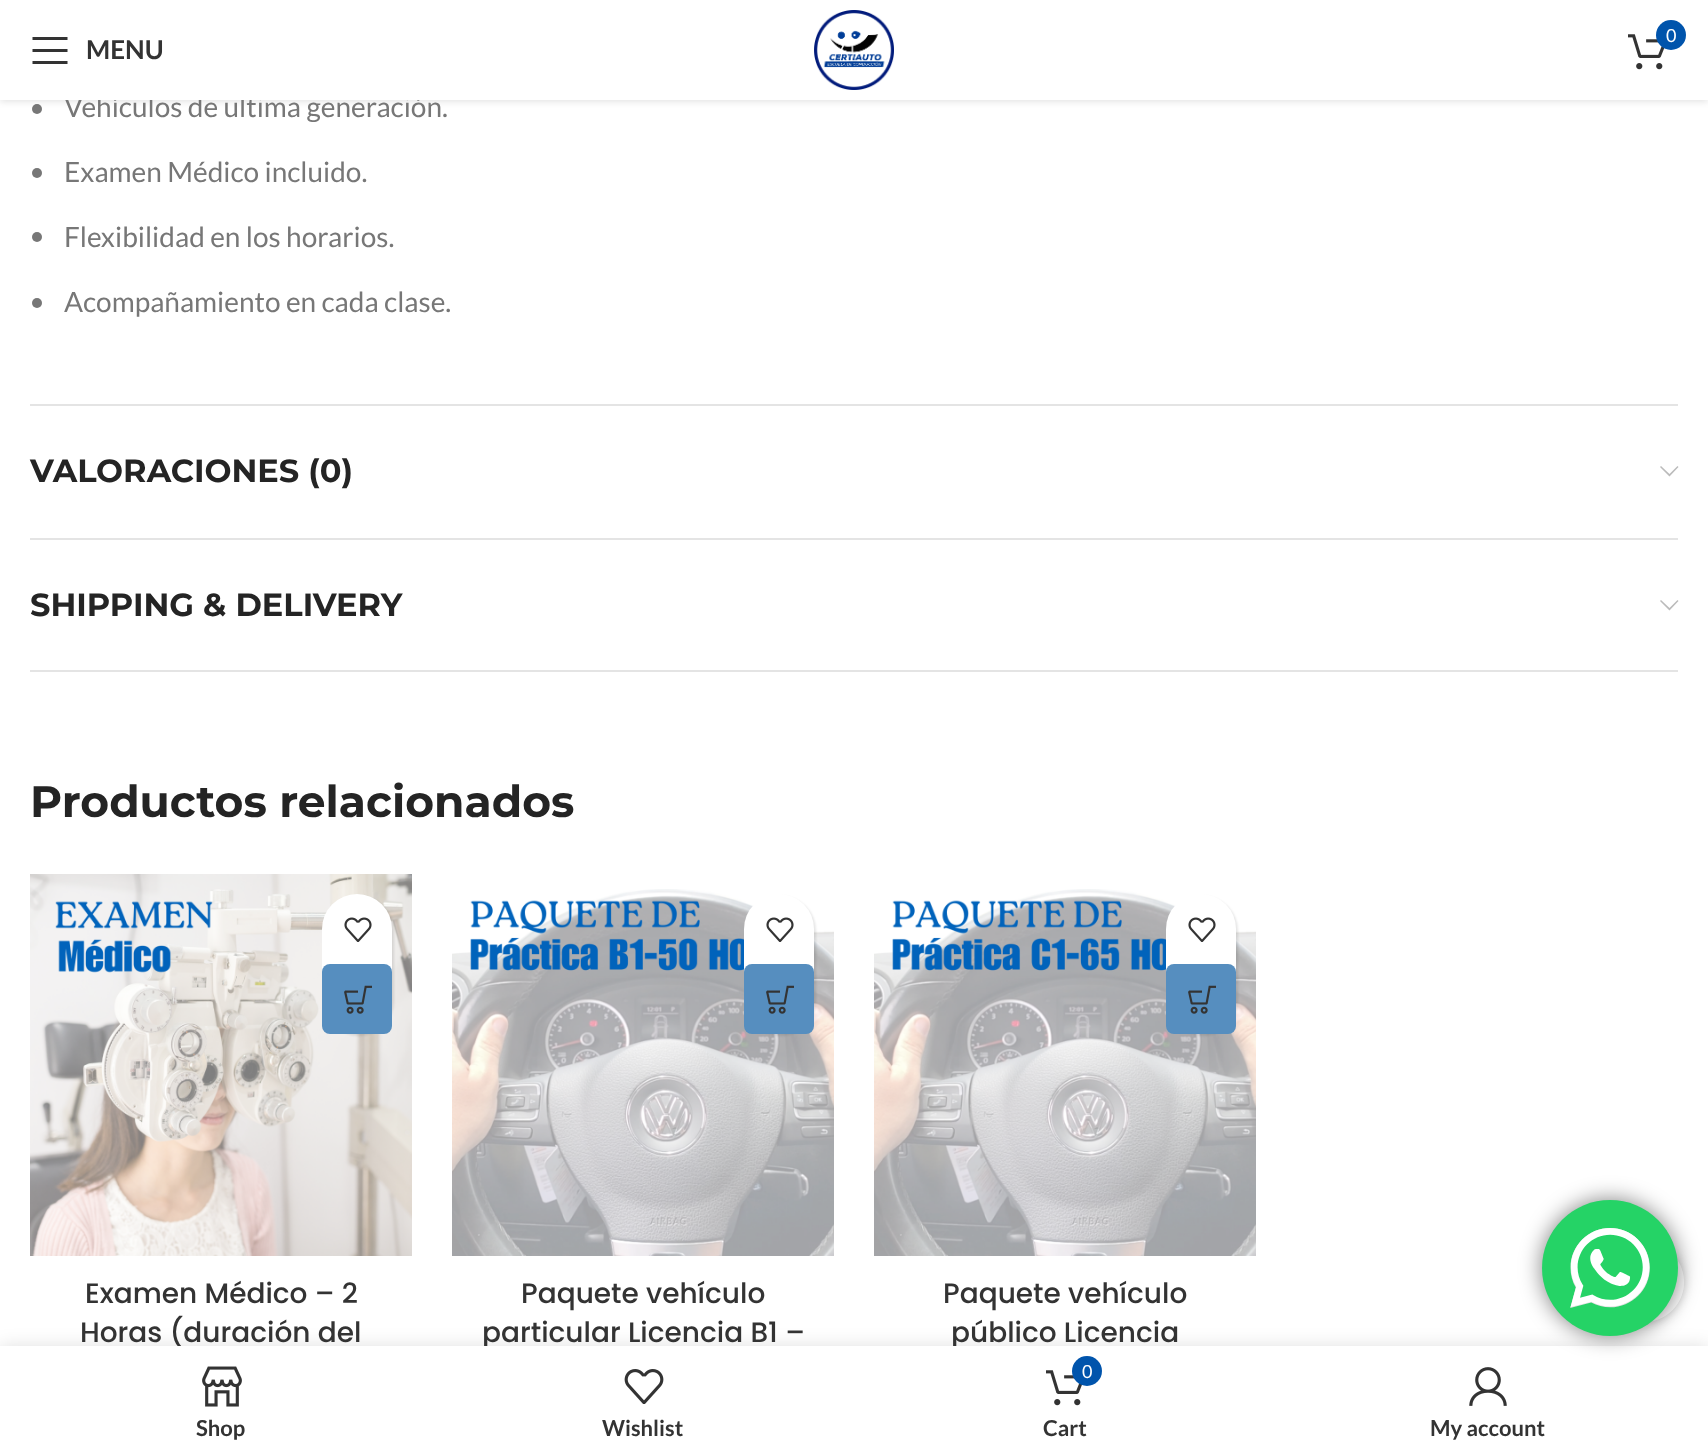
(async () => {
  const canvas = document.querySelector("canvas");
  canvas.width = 1708;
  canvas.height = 1455;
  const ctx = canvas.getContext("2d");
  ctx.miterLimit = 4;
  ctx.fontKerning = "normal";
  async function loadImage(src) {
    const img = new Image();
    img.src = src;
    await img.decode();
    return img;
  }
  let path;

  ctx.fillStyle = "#ffffff";
  ctx.fillRect(0, 0, 1708, 1455);
  ctx.fillStyle = "#777777";
  ctx.beginPath();
  ctx.arc(37, 109, 5, 0, Math.PI * 2);
  ctx.fill();
  ctx.fillStyle = "rgba(0, 0, 0, 0.1)";
  ctx.filter = "blur(3px)";
  ctx.beginPath();
  ctx.rect(0, 2, 1708, 100);
  ctx.fill();
  ctx.filter = "none";
  ctx.fillStyle = "#e4e4e4";
  ctx.fillRect(30, 404, 1648, 2);
  ctx.fillStyle = "#777777";
  ctx.beginPath();
  ctx.arc(37, 173, 5, 0, Math.PI * 2);
  ctx.fill();
  ctx.beginPath();
  ctx.arc(37, 237, 5, 0, Math.PI * 2);
  ctx.fill();
  ctx.beginPath();
  ctx.arc(37, 303, 5, 0, Math.PI * 2);
  ctx.fill();
  ctx.fillStyle = "#e4e4e4";
  ctx.fillRect(30, 538, 1648, 2);
  ctx.fillStyle = "#bbbbbb";
  path = new Path2D("M1677.5 466L1669.5 474L1661 466L1660 467L1669.5 476.5L1678.5 467Z");
  ctx.fill(path);
  ctx.fillStyle = "#e4e4e4";
  ctx.fillRect(30, 670, 1648, 2);
  ctx.fillStyle = "#bbbbbb";
  path = new Path2D("M1677.5 600L1669.5 608L1661 600L1660 601L1669.5 610.5L1678.5 601Z");
  ctx.fill(path);
  ctx.drawImage(await loadImage("img/3.png"), 30, 874, 382, 382);
  ctx.fillStyle = "rgba(0, 0, 0, 0.1)";
  ctx.filter = "blur(1px)";
  ctx.beginPath();
  ctx.roundRect(324, 896, 70, 140, 35);
  ctx.fill();
  ctx.filter = "none";
  ctx.fillStyle = "#ffffff";
  ctx.beginPath();
  ctx.roundRect(322, 894, 70, 140, 35);
  ctx.fill();
  ctx.drawImage(await loadImage("img/4.png"), 344, 917, 28, 25);
  ctx.fillStyle = "#568ebf";
  ctx.beginPath();
  ctx.roundRect(322, 964, 70, 70, 8);
  ctx.fill();
  ctx.drawImage(await loadImage("img/5.png"), 344, 985, 28, 29);
  ctx.drawImage(await loadImage("img/6.png"), 452, 889, 382, 367);
  ctx.fillStyle = "rgba(0, 0, 0, 0.1)";
  ctx.filter = "blur(1px)";
  ctx.beginPath();
  ctx.roundRect(746, 896, 70, 140, 35);
  ctx.fill();
  ctx.filter = "none";
  ctx.fillStyle = "#ffffff";
  ctx.beginPath();
  ctx.roundRect(744, 894, 70, 140, 35);
  ctx.fill();
  ctx.drawImage(await loadImage("img/4.png"), 766, 917, 28, 25);
  ctx.fillStyle = "#568ebf";
  ctx.beginPath();
  ctx.roundRect(744, 964, 70, 70, 8);
  ctx.fill();
  ctx.drawImage(await loadImage("img/5.png"), 766, 985, 28, 29);
  ctx.drawImage(await loadImage("img/7.png"), 874, 889, 382, 367);
  ctx.fillStyle = "rgba(0, 0, 0, 0.1)";
  ctx.filter = "blur(1px)";
  ctx.beginPath();
  ctx.roundRect(1168, 896, 70, 140, 35);
  ctx.fill();
  ctx.filter = "none";
  ctx.fillStyle = "#ffffff";
  ctx.beginPath();
  ctx.roundRect(1166, 894, 70, 140, 35);
  ctx.fill();
  ctx.drawImage(await loadImage("img/4.png"), 1188, 917, 28, 25);
  ctx.fillStyle = "#568ebf";
  ctx.beginPath();
  ctx.roundRect(1166, 964, 70, 70, 8);
  ctx.fill();
  ctx.drawImage(await loadImage("img/5.png"), 1188, 985, 28, 29);
  ctx.save();
  path = new Path2D("M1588 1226H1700V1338H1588ZM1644 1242C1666 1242 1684 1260 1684 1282C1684 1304 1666 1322 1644 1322C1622 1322 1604 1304 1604 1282C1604 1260 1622 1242 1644 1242Z");
  ctx.clip(path, "evenodd");
  ctx.fillStyle = "rgba(0, 0, 0, 0.17)";
  ctx.filter = "blur(5px)";
  ctx.beginPath();
  ctx.roundRect(1604, 1242, 80, 80, 40);
  ctx.fill();
  ctx.filter = "none";
  ctx.restore();
  ctx.fillStyle = "rgba(255, 255, 255, 0.9)";
  ctx.beginPath();
  ctx.arc(1644, 1282, 40, 0, Math.PI * 2);
  ctx.fill();
  ctx.fillStyle = "rgba(0, 0, 0, 0.12)";
  ctx.filter = "blur(9px)";
  ctx.beginPath();
  ctx.rect(0, 1346, 1708, 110);
  ctx.fill();
  ctx.filter = "none";
  ctx.font = "28px Lato";
  ctx.fillStyle = "#777777";
  ctx.fillText("Vehículos de ultima generación.", 64, 117);
  ctx.fillStyle = "#ffffff";
  ctx.fillRect(0, 0, 1708, 100);
  ctx.drawImage(await loadImage("img/2.png"), 1628, 34, 37, 36);
  ctx.fillStyle = "#0054ac";
  ctx.beginPath();
  ctx.arc(1671, 35, 15, 0, Math.PI * 2);
  ctx.fill();
  ctx.font = "18px Lato";
  ctx.fillStyle = "#ffffff";
  ctx.fillText("0", 1666, 42);
  ctx.drawImage(await loadImage("img/1.png"), 814, 10, 80, 80);
  ctx.fillStyle = "#333333";
  path = new Path2D("M32.5 40H67.5V37H32.5ZM32.5 52H67.5V49H32.5ZM32.5 64H67.5V61H32.5Z");
  ctx.fill(path);
  ctx.font = "bold 26px Lato";
  ctx.fillText("MENU", 86, 59);
  ctx.font = "28px Lato";
  ctx.fillStyle = "#777777";
  for (const [text, x, y] of [
    ["Examen Médico incluido.", 64, 182],
    ["Flexibilidad en los horarios.", 64, 247],
    ["Acompañamiento en cada clase.", 64, 312],
  ]) {
    ctx.fillText(text, x, y);
  }
  ctx.font = "bold 32px Montserrat";
  ctx.fillStyle = "#242424";
  ctx.fillText("VALORACIONES (0)", 30, 482);
  ctx.fillText("SHIPPING & DELIVERY", 30, 616);
  ctx.font = "bold 44px Montserrat";
  ctx.fillText("Productos relacionados", 30, 817);
  ctx.font = "500 28px Poppins";
  ctx.fillStyle = "#333333";
  for (const [text, x, y] of [
    ["Examen Médico – 2", 85, 1303],
    ["Horas (duración del", 80, 1342],
    ["Paquete vehículo", 521, 1303],
    ["particular Licencia B1 –", 482, 1342],
    ["Paquete vehículo", 943, 1303],
    ["público Licencia", 951, 1342],
  ]) {
    ctx.fillText(text, x, y);
  }
  ctx.fillStyle = "#ffffff";
  ctx.fillRect(0, 1346, 1708, 109);
  ctx.fillStyle = "rgba(0, 0, 0, 0.5)";
  ctx.filter = "blur(11px)";
  ctx.beginPath();
  ctx.roundRect(1542, 1200, 136, 136, 68);
  ctx.fill();
  ctx.filter = "none";
  ctx.fillStyle = "#25d366";
  ctx.beginPath();
  ctx.arc(1610, 1268, 68, 0, Math.PI * 2);
  ctx.fill();
  ctx.drawImage(await loadImage("img/8.png"), 1570, 1228, 80, 80);
  ctx.drawImage(await loadImage("img/9.png"), 202, 1366, 40, 41);
  ctx.font = "bold 22px Lato";
  ctx.fillStyle = "#333333";
  ctx.fillText("Shop", 196, 1436);
  ctx.drawImage(await loadImage("img/10.png"), 624, 1369, 40, 35);
  ctx.fillText("Wishlist", 602, 1436);
  ctx.drawImage(await loadImage("img/11.png"), 1046, 1370, 36, 36);
  ctx.fillStyle = "#0054ac";
  ctx.beginPath();
  ctx.arc(1087, 1371, 15, 0, Math.PI * 2);
  ctx.fill();
  ctx.font = "18px Lato";
  ctx.fillStyle = "#ffffff";
  ctx.fillText("0", 1082, 1378);
  ctx.font = "bold 22px Lato";
  ctx.fillStyle = "#333333";
  ctx.fillText("Cart", 1043, 1436);
  ctx.drawImage(await loadImage("img/12.png"), 1469, 1367, 38, 39);
  ctx.fillText("My account", 1430, 1436);
})();
